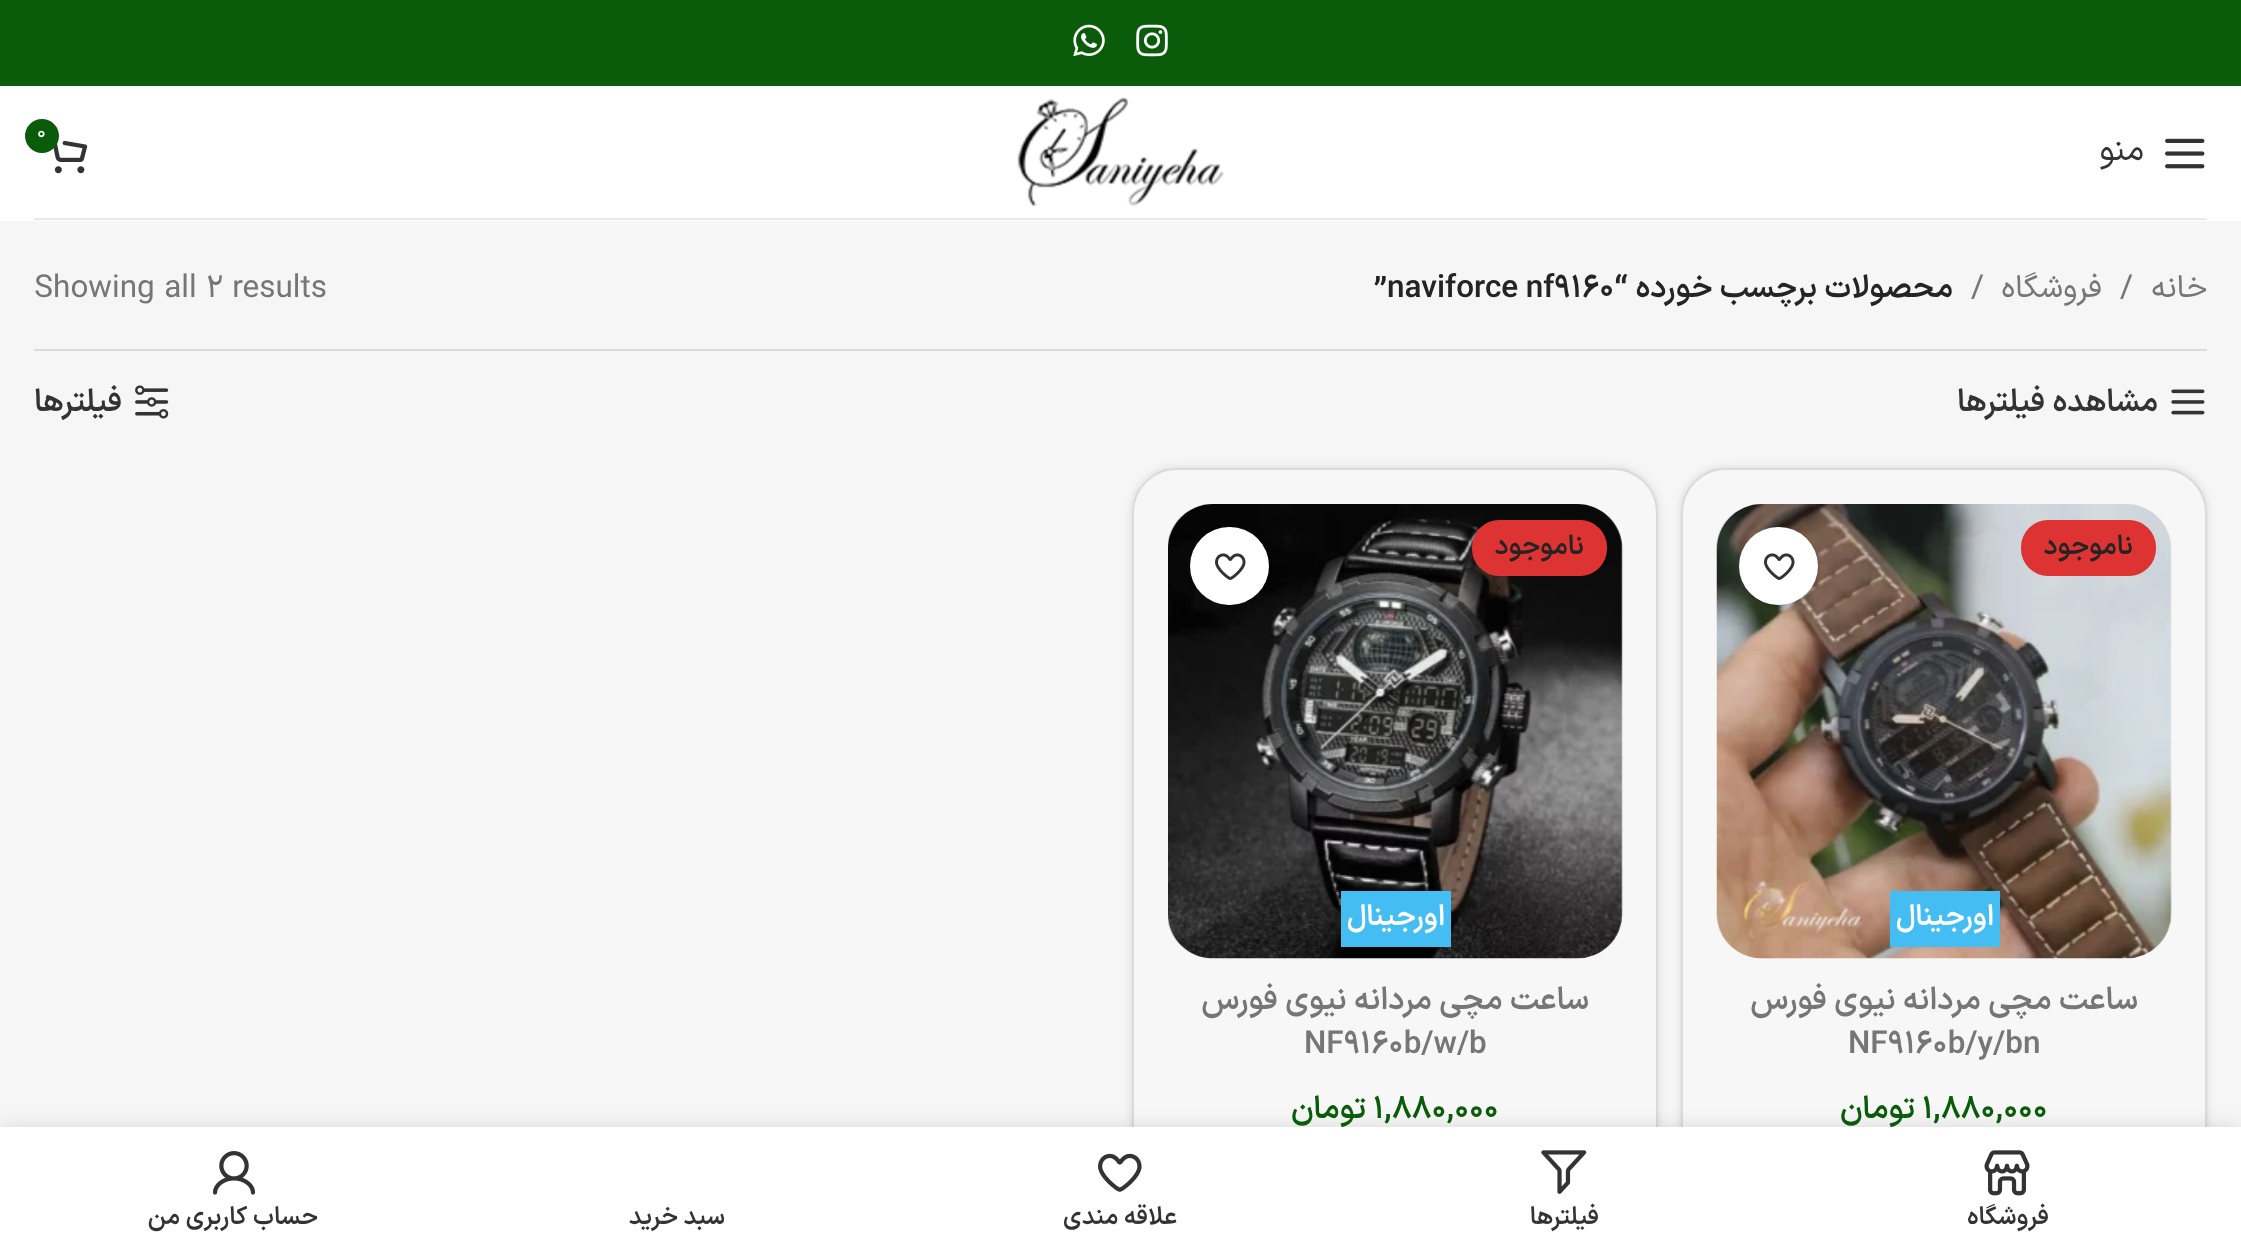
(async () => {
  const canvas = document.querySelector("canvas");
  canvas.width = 2241;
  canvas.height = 1250;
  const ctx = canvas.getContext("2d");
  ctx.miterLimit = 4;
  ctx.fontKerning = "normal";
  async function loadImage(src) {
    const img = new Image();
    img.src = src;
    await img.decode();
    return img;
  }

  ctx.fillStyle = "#f6f6f6";
  ctx.fillRect(0, 0, 2241, 1250);
  ctx.fillStyle = "#0a5c0a";
  ctx.fillRect(0, 0, 2241, 86);
  ctx.drawImage(await loadImage("img/1.png"), 1136, 24, 32, 33);
  ctx.drawImage(await loadImage("img/2.png"), 1073, 24, 32, 33);
  ctx.fillStyle = "#ffffff";
  ctx.fillRect(0, 86, 2241, 135);
  ctx.fillStyle = "#e8e8e8";
  ctx.fillRect(34, 218, 2173, 2);
  ctx.drawImage(await loadImage("img/3.png"), 1017, 97, 207, 110);
  ctx.drawImage(await loadImage("img/4.png"), 53, 140, 35, 34);
  ctx.fillStyle = "#0a5c0a";
  ctx.beginPath();
  ctx.arc(42, 136, 17, 0, Math.PI * 2);
  ctx.fill();
  ctx.drawImage(await loadImage("img/5.png"), 2165, 138, 40, 31);
  ctx.fillStyle = "#dcdcdc";
  ctx.fillRect(34, 349, 2173, 2);
  ctx.drawImage(await loadImage("img/6.png"), 2171, 389, 34, 26);
  ctx.drawImage(await loadImage("img/7.png"), 135, 385, 34, 34);
  ctx.fillStyle = "rgba(0, 0, 0, 0.12)";
  ctx.filter = "blur(4.5px)";
  ctx.beginPath();
  ctx.roundRect(1681, 468, 526, 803, 45);
  ctx.fill();
  ctx.filter = "none";
  ctx.fillStyle = "#f7f7f7";
  ctx.beginPath();
  ctx.roundRect(1681, 468, 526, 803, 45);
  ctx.fill();
  ctx.beginPath();
  ctx.roundRect(1682, 469, 524, 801, 44);
  ctx.strokeStyle = "rgba(0, 0, 0, 0.11)";
  ctx.lineWidth = 2;
  ctx.stroke();
  ctx.drawImage(await loadImage("img/8.png"), 1716, 504, 456, 455);
  ctx.fillStyle = "#dd3333";
  ctx.beginPath();
  ctx.roundRect(2021, 520, 135, 56, 27);
  ctx.fill();
  ctx.fillStyle = "#44bef2";
  ctx.fillRect(1890, 891, 110, 56);
  ctx.fillStyle = "rgba(0, 0, 0, 0.1)";
  ctx.filter = "blur(1px)";
  ctx.beginPath();
  ctx.roundRect(1742, 529, 78, 79, 39);
  ctx.fill();
  ctx.filter = "none";
  ctx.fillStyle = "#ffffff";
  ctx.beginPath();
  ctx.roundRect(1739, 527, 79, 78, 39);
  ctx.fill();
  ctx.drawImage(await loadImage("img/9.png"), 1764, 553, 31, 27);
  ctx.fillStyle = "rgba(0, 0, 0, 0.12)";
  ctx.filter = "blur(4.5px)";
  ctx.beginPath();
  ctx.roundRect(1132, 468, 526, 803, 45);
  ctx.fill();
  ctx.filter = "none";
  ctx.fillStyle = "#f7f7f7";
  ctx.beginPath();
  ctx.roundRect(1132, 468, 526, 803, 45);
  ctx.fill();
  ctx.beginPath();
  ctx.roundRect(1133, 469, 524, 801, 44);
  ctx.stroke();
  ctx.drawImage(await loadImage("img/10.png"), 1168, 504, 455, 455);
  ctx.fillStyle = "#dd3333";
  ctx.beginPath();
  ctx.roundRect(1472, 520, 135, 56, 27);
  ctx.fill();
  ctx.fillStyle = "#44bef2";
  ctx.fillRect(1341, 891, 110, 56);
  ctx.fillStyle = "#ffffff";
  ctx.beginPath();
  ctx.roundRect(1190, 527, 79, 78, 39);
  ctx.fill();
  ctx.drawImage(await loadImage("img/9.png"), 1215, 553, 31, 27);
  ctx.fillStyle = "rgba(0, 0, 0, 0.12)";
  ctx.filter = "blur(10px)";
  ctx.beginPath();
  ctx.rect(0, 1127, 2241, 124);
  ctx.fill();
  ctx.filter = "none";
  ctx.font = "20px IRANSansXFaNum";
  ctx.fillStyle = "#ffffff";
  ctx.fillText("0", 37, 138);
  ctx.direction = "rtl";
  ctx.font = "34px IRANSansXFaNum";
  ctx.fillStyle = "#333333";
  ctx.fillText("منو", 2144, 160);
  ctx.font = "31.5px IRANSansXFaNum";
  ctx.fillStyle = "#767676";
  ctx.fillText("خانه", 2207, 297);
  ctx.direction = "ltr";
  ctx.fillText("/", 2120, 297);
  ctx.direction = "rtl";
  ctx.fillText("فروشگاه", 2102, 297);
  ctx.direction = "ltr";
  ctx.fillText("/", 1971, 297);
  ctx.direction = "rtl";
  ctx.font = "600 31.5px IRANSansXFaNum";
  ctx.fillStyle = "#242424";
  ctx.fillText("محصولات برچسب خورده", 1953, 297);
  ctx.direction = "ltr";
  ctx.fillText("”naviforce nf9160“", 1374, 297);
  ctx.font = "31.5px IRANSansXFaNum";
  ctx.fillStyle = "#767676";
  ctx.fillText("Showing all 2 results", 34, 297);
  ctx.direction = "rtl";
  ctx.font = "600 31.5px IRANSansXFaNum";
  ctx.fillStyle = "#333333";
  ctx.fillText("مشاهده فیلترها", 2158, 411);
  ctx.fillText("فیلترها", 122, 411);
  ctx.font = "600 27px IRANSansXFaNum";
  ctx.fillStyle = "#242424";
  ctx.fillText("ناموجود", 2133, 554);
  ctx.font = "600 29px IRANSansXFaNum";
  ctx.fillStyle = "#ffffff";
  ctx.fillText("اورجینال", 1994, 925);
  ctx.font = "600 31.5px IRANSansXFaNum";
  ctx.fillStyle = "#767676";
  ctx.fillText("ساعت مچی مردانه نیوی فورس", 2138, 1009);
  ctx.direction = "ltr";
  ctx.fillText("NF9160b/y/bn", 1848, 1053);
  ctx.fillStyle = "#0a5c0a";
  ctx.fillText("1,880,000", 1922, 1118);
  ctx.direction = "rtl";
  ctx.fillText("تومان", 1915, 1118);
  ctx.font = "600 27px IRANSansXFaNum";
  ctx.fillStyle = "#242424";
  ctx.fillText("ناموجود", 1584, 554);
  ctx.font = "600 29px IRANSansXFaNum";
  ctx.fillStyle = "#ffffff";
  ctx.fillText("اورجینال", 1445, 925);
  ctx.font = "600 31.5px IRANSansXFaNum";
  ctx.fillStyle = "#767676";
  ctx.fillText("ساعت مچی مردانه نیوی فورس", 1589, 1009);
  ctx.direction = "ltr";
  ctx.fillText("NF9160b/w/b", 1304, 1053);
  ctx.fillStyle = "#0a5c0a";
  ctx.fillText("1,880,000", 1373, 1118);
  ctx.direction = "rtl";
  ctx.fillText("تومان", 1366, 1118);
  ctx.fillStyle = "#ffffff";
  ctx.fillRect(0, 1127, 2241, 123);
  ctx.drawImage(await loadImage("img/11.png"), 1984, 1150, 46, 46);
  ctx.font = "600 24.75px IRANSansXFaNum";
  ctx.fillStyle = "#333333";
  ctx.fillText("فروشگاه", 2049, 1224);
  ctx.drawImage(await loadImage("img/12.png"), 1541, 1150, 46, 44);
  ctx.fillText("فیلترها", 1599, 1224);
  ctx.drawImage(await loadImage("img/13.png"), 1098, 1153, 44, 39);
  ctx.fillText("علاقه مندی", 1177, 1224);
  ctx.fillText("سبد خرید", 725, 1224);
  ctx.drawImage(await loadImage("img/14.png"), 212, 1151, 44, 44);
  ctx.fillText("حساب کاربری من", 318, 1224);
})();
